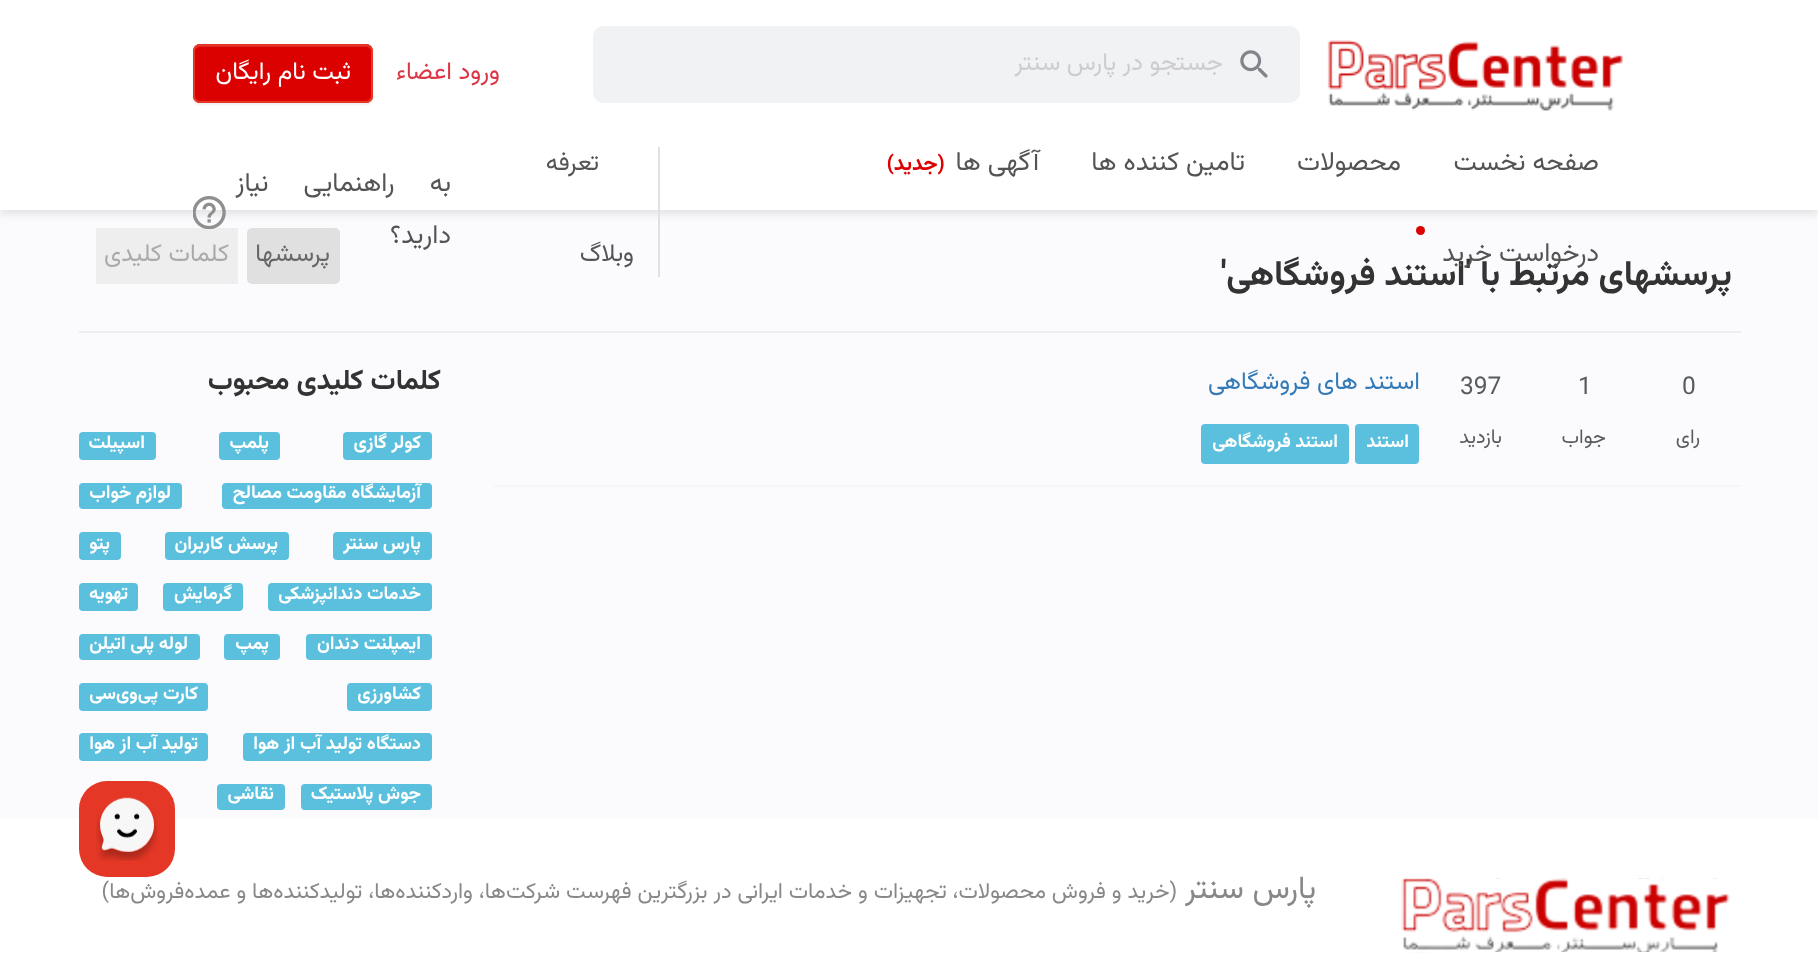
(async () => {
  const canvas = document.querySelector("canvas");
  canvas.width = 1818;
  canvas.height = 954;
  const ctx = canvas.getContext("2d");
  ctx.miterLimit = 4;
  ctx.fontKerning = "normal";
  async function loadImage(src) {
    const img = new Image();
    img.src = src;
    await img.decode();
    return img;
  }
  let path;

  ctx.fillStyle = "#fbfbfd";
  ctx.fillRect(0, 0, 1818, 954);
  ctx.fillStyle = "#e0e0e0";
  ctx.beginPath();
  ctx.roundRect(247, 228, 93, 56, 5);
  ctx.fill();
  ctx.fillStyle = "#eeeeee";
  ctx.fillRect(96, 228, 142, 56);
  ctx.fillStyle = "rgba(0, 0, 0, 0.1)";
  ctx.filter = "blur(4.5px)";
  ctx.beginPath();
  ctx.rect(0, 4, 1818, 210);
  ctx.fill();
  ctx.filter = "none";
  ctx.fillStyle = "#ffffff";
  ctx.fillRect(0, 0, 1818, 210);
  ctx.drawImage(await loadImage("img/1.png"), 1327, 40, 296, 71);
  ctx.fillStyle = "#f1f2f4";
  ctx.beginPath();
  ctx.roundRect(593, 26, 707, 77, 11);
  ctx.fill();
  ctx.drawImage(await loadImage("img/2.png"), 1240, 50, 28, 28);
  ctx.fillStyle = "rgba(0, 0, 0, 0.07)";
  ctx.filter = "blur(1px)";
  ctx.beginPath();
  ctx.roundRect(193, 46, 180, 59, 7);
  ctx.fill();
  ctx.filter = "none";
  ctx.fillStyle = "#db0101";
  ctx.beginPath();
  ctx.roundRect(193, 44, 180, 59, 7);
  ctx.fill();
  ctx.fillStyle = "#e02727";
  path = new Path2D("M200 47H366C369 47 371 50 371 52C371 49 369 46 366 46H198C195 47 194 49 194 52C194 50 197 47 200 47Z");
  ctx.fill(path);
  ctx.beginPath();
  ctx.roundRect(194, 45, 178, 57, 6);
  ctx.strokeStyle = "#e43725";
  ctx.lineWidth = 2;
  ctx.stroke();
  ctx.fillStyle = "#db0101";
  ctx.beginPath();
  ctx.arc(1420.5, 230.5, 4.5, 0, Math.PI * 2);
  ctx.fill();
  ctx.fillStyle = "#e0e0e6";
  ctx.fillRect(658, 147, 2, 130);
  ctx.drawImage(await loadImage("img/3.png"), 193, 196, 33, 33);
  ctx.fillStyle = "#eeeeee";
  ctx.fillRect(79, 331, 1662, 2);
  ctx.fillStyle = "#f6f6f6";
  ctx.fillRect(494, 485, 1247, 2);
  ctx.fillStyle = "#5bc0de";
  ctx.beginPath();
  ctx.roundRect(1355, 424, 64, 40, 4);
  ctx.fill();
  ctx.beginPath();
  ctx.roundRect(1201, 424, 148, 40, 4);
  ctx.fill();
  ctx.beginPath();
  ctx.roundRect(343, 432, 89, 28, 4);
  ctx.fill();
  ctx.beginPath();
  ctx.roundRect(219, 432, 61, 28, 4);
  ctx.fill();
  ctx.beginPath();
  ctx.roundRect(79, 432, 77, 28, 4);
  ctx.fill();
  ctx.beginPath();
  ctx.roundRect(222, 483, 210, 26, 4);
  ctx.fill();
  ctx.beginPath();
  ctx.roundRect(79, 483, 103, 26, 4);
  ctx.fill();
  ctx.beginPath();
  ctx.roundRect(333, 532, 99, 28, 4);
  ctx.fill();
  ctx.beginPath();
  ctx.roundRect(165, 532, 124, 28, 4);
  ctx.fill();
  ctx.beginPath();
  ctx.roundRect(79, 532, 42, 28, 4);
  ctx.fill();
  ctx.beginPath();
  ctx.roundRect(268, 583, 164, 28, 4);
  ctx.fill();
  ctx.beginPath();
  ctx.roundRect(163, 583, 80, 28, 4);
  ctx.fill();
  ctx.beginPath();
  ctx.roundRect(79, 583, 59, 28, 4);
  ctx.fill();
  ctx.beginPath();
  ctx.roundRect(306, 634, 126, 26, 4);
  ctx.fill();
  ctx.beginPath();
  ctx.roundRect(224, 634, 56, 26, 4);
  ctx.fill();
  ctx.beginPath();
  ctx.roundRect(79, 634, 121, 26, 4);
  ctx.fill();
  ctx.beginPath();
  ctx.roundRect(347, 683, 85, 28, 4);
  ctx.fill();
  ctx.beginPath();
  ctx.roundRect(79, 683, 129, 28, 4);
  ctx.fill();
  ctx.beginPath();
  ctx.roundRect(243, 733, 189, 28, 4);
  ctx.fill();
  ctx.beginPath();
  ctx.roundRect(79, 733, 129, 28, 4);
  ctx.fill();
  ctx.beginPath();
  ctx.roundRect(301, 784, 131, 26, 4);
  ctx.fill();
  ctx.beginPath();
  ctx.roundRect(217, 784, 68, 26, 4);
  ctx.fill();
  ctx.fillStyle = "#ffffff";
  ctx.fillRect(0, 819, 1818, 135);
  ctx.fillStyle = "#e43725";
  ctx.beginPath();
  ctx.roundRect(79, 781, 96, 96, 28);
  ctx.fill();
  ctx.drawImage(await loadImage("img/4.png"), 96, 797, 62, 64);
  ctx.drawImage(await loadImage("img/5.png"), 1401, 878, 329, 75);
  ctx.direction = "rtl";
  ctx.font = "24.5px Vazirmatn";
  ctx.fillStyle = "#cdcdcd";
  ctx.fillText("جستجو در پارس سنتر", 1223, 70);
  ctx.fillStyle = "#dc3545";
  ctx.fillText("ورود اعضاء", 500, 79);
  ctx.fillStyle = "#ffffff";
  ctx.fillText("ثبت نام رایگان", 351, 79);
  ctx.font = "26.25px Vazirmatn";
  ctx.fillStyle = "#545454";
  for (const [text, x, y] of [
    ["صفحه نخست", 1599, 170],
    ["محصولات", 1401, 170],
    ["تامین کننده ها", 1245, 170],
    ["آگهی ها", 1039, 170],
  ]) {
    ctx.fillText(text, x, y);
  }
  ctx.font = "bold 21px Vazirmatn";
  ctx.fillStyle = "#db0101";
  ctx.fillText("(جدید)", 945, 170);
  ctx.font = "24.5px Vazirmatn";
  ctx.fillStyle = "#545454";
  ctx.fillText("تعرفه", 599, 170);
  ctx.fillText("وبلاگ", 634, 261);
  ctx.wordSpacing = "28px";
  ctx.font = "26.25px Vazirmatn";
  ctx.fillText("به راهنمایی نیاز", 451, 191);
  ctx.wordSpacing = "0px";
  ctx.fillText("دارید؟", 451, 243);
  ctx.font = "bold 35px Vazirmatn";
  ctx.fillStyle = "#333333";
  ctx.fillText("پرسشهای مرتبط با 'استند فروشگاهی'", 1732, 285);
  ctx.font = "26.25px Vazirmatn";
  ctx.fillStyle = "#545454";
  ctx.fillText("درخواست خرید", 1599, 261);
  ctx.font = "24.5px Vazirmatn";
  ctx.fillStyle = "#666666";
  ctx.fillText("پرسشها", 330, 261);
  ctx.fillStyle = "#aaaaaa";
  ctx.fillText("کلمات کلیدی", 229, 261);
  ctx.direction = "ltr";
  ctx.fillStyle = "#585b5e";
  ctx.fillText("0", 1682, 394);
  ctx.direction = "rtl";
  ctx.font = "20px Vazirmatn";
  ctx.fillText("رای", 1700, 443);
  ctx.direction = "ltr";
  ctx.font = "24.5px Vazirmatn";
  ctx.fillText("1", 1578, 394);
  ctx.direction = "rtl";
  ctx.font = "20px Vazirmatn";
  ctx.fillText("جواب", 1606, 443);
  ctx.direction = "ltr";
  ctx.font = "24.5px Vazirmatn";
  ctx.fillText("397", 1460, 394);
  ctx.direction = "rtl";
  ctx.font = "20px Vazirmatn";
  ctx.fillText("بازدید", 1502, 443);
  ctx.font = "24.5px Vazirmatn";
  ctx.fillStyle = "#337ab7";
  ctx.fillText("استند های فروشگاهی", 1420, 389);
  ctx.font = "bold 18.4px Vazirmatn";
  ctx.fillStyle = "#ffffff";
  ctx.fillText("استند", 1409, 447);
  ctx.fillText("استند فروشگاهی", 1338, 447);
  ctx.font = "bold 28px Vazirmatn";
  ctx.fillStyle = "#333333";
  ctx.fillText("کلمات کلیدی محبوب", 441, 389);
  ctx.font = "bold 18.4px Vazirmatn";
  ctx.fillStyle = "#ffffff";
  for (const [text, x, y] of [
    ["کولر گازی", 421, 448],
    ["پلمپ", 269, 448],
    ["اسپیلت", 145, 448],
    ["آزمایشگاه مقاومت مصالح", 421, 498],
    ["لوازم خواب", 171, 498],
    ["پارس سنتر", 421, 549],
    ["پرسش کاربران", 278, 549],
    ["پتو", 110, 549],
    ["خدمات دندانپزشکی", 421, 599],
    ["گرمایش", 232, 599],
    ["تهویه", 128, 599],
    ["ایمپلنت دندان", 421, 649],
    ["پمپ", 269, 649],
    ["لوله پلی اتیلن", 188, 649],
    ["کشاورزی", 421, 699],
    ["کارت پی‌وی‌سی", 198, 699],
    ["دستگاه تولید آب از هوا", 421, 749],
    ["تولید آب از هوا", 198, 749],
    ["جوش پلاستیک", 421, 799],
    ["نقاشی", 274, 799],
  ]) {
    ctx.fillText(text, x, y);
  }
  ctx.font = "31.5px Vazirmatn";
  ctx.fillStyle = "#888888";
  ctx.fillText("پارس سنتر", 1316, 898);
  ctx.font = "22.05px Vazirmatn";
  ctx.fillText("(خرید و فروش محصولات، تجهیزات و خدمات ایرانی در بزرگترین فهرست شرکت‌ها، واردکننده‌ها، تولید‌کننده‌ها و عمده‌فروش‌ها)", 1177, 898);
})();
